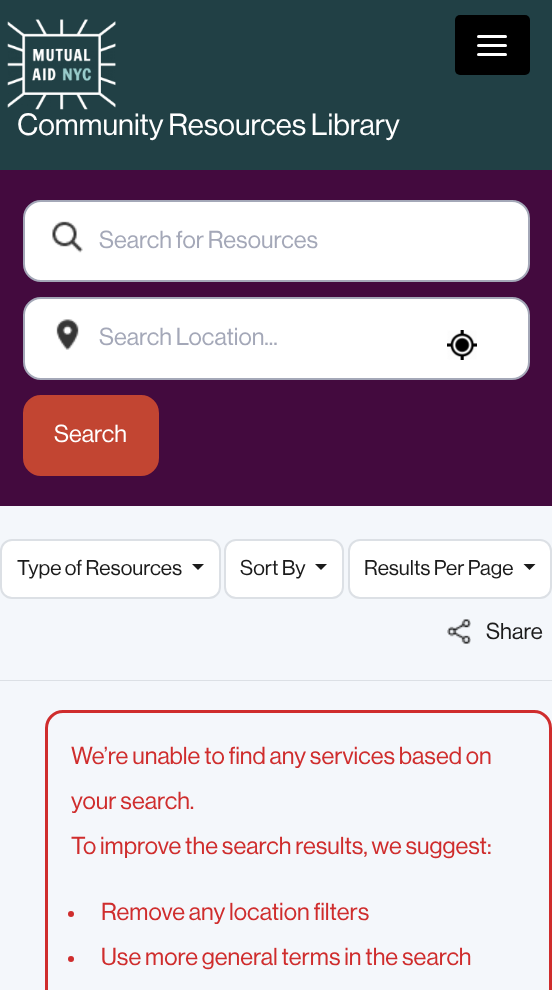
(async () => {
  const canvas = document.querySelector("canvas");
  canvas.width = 552;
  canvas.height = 990;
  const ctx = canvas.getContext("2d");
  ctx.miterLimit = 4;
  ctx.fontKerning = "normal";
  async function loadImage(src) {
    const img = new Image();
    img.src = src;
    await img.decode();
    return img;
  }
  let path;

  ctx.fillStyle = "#430a3e";
  ctx.fillRect(0, 0, 552, 990);
  ctx.fillStyle = "#214045";
  ctx.fillRect(0, 0, 552, 170);
  ctx.fillStyle = "#000000";
  ctx.beginPath();
  ctx.roundRect(455, 15, 75, 60, 5);
  ctx.fill();
  ctx.fillStyle = "#ffffff";
  ctx.beginPath();
  ctx.roundRect(477, 35, 30, 3, 1.5);
  ctx.fill();
  ctx.beginPath();
  ctx.roundRect(477, 44, 30, 3, 1.5);
  ctx.fill();
  ctx.beginPath();
  ctx.roundRect(477, 53, 30, 3, 1.5);
  ctx.fill();
  ctx.drawImage(await loadImage("img/1.png"), 7, 19, 109, 91);
  ctx.beginPath();
  ctx.roundRect(24, 201, 505, 80, 17);
  ctx.fill();
  ctx.strokeStyle = "#a4a8b8";
  ctx.lineWidth = 2;
  ctx.stroke();
  ctx.drawImage(await loadImage("img/2.png"), 52, 221, 31, 32);
  ctx.beginPath();
  ctx.roundRect(24, 298, 505, 81, 17);
  ctx.fill();
  ctx.stroke();
  ctx.drawImage(await loadImage("img/3.png"), 56, 319, 23, 31);
  ctx.drawImage(await loadImage("img/4.png"), 447, 330, 30, 30);
  ctx.fillStyle = "#c24532";
  ctx.beginPath();
  ctx.roundRect(24, 396, 134, 79, 17);
  ctx.fill();
  ctx.strokeStyle = "#c24532";
  ctx.stroke();
  ctx.fillStyle = "#f4f7fb";
  ctx.fillRect(0, 506, 552, 484);
  ctx.fillStyle = "#dce0e5";
  ctx.fillRect(0, 680, 552, 1);
  ctx.fillStyle = "#ffffff";
  ctx.beginPath();
  ctx.roundRect(1, 540, 219, 58, 11);
  ctx.fill();
  ctx.strokeStyle = "#dce0e5";
  ctx.stroke();
  ctx.fillStyle = "#1b1b1b";
  path = new Path2D("M192 564H204L198 570Z");
  ctx.fill(path);
  ctx.fillStyle = "#ffffff";
  ctx.beginPath();
  ctx.roundRect(225, 540, 118, 58, 11);
  ctx.fill();
  ctx.stroke();
  ctx.fillStyle = "#1b1b1b";
  path = new Path2D("M315 564H327L321 570Z");
  ctx.fill(path);
  ctx.fillStyle = "#ffffff";
  ctx.beginPath();
  ctx.roundRect(349, 540, 202, 58, 11);
  ctx.fill();
  ctx.stroke();
  ctx.fillStyle = "#1b1b1b";
  path = new Path2D("M523.5 564H535.5L529.5 570Z");
  ctx.fill(path);
  ctx.drawImage(await loadImage("img/5.png"), 447, 619, 24, 25);
  ctx.beginPath();
  ctx.roundRect(46.5, 711.5, 504, 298, 16.5);
  ctx.strokeStyle = "#cf2d2d";
  ctx.lineWidth = 3;
  ctx.stroke();
  ctx.fillStyle = "#cf2d2d";
  ctx.beginPath();
  ctx.arc(71, 914, 3, 0, Math.PI * 2);
  ctx.fill();
  ctx.beginPath();
  ctx.arc(71, 959, 3, 0, Math.PI * 2);
  ctx.fill();
  ctx.font = "30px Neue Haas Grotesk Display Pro";
  ctx.fillStyle = "#ffffff";
  ctx.fillText("Community Resources Library", 17, 135);
  ctx.font = "24px Neue Haas Grotesk Display Pro";
  ctx.fillStyle = "#a4a8b8";
  ctx.fillText("Search for Resources", 99, 248);
  ctx.fillText("Search Location...", 99, 345);
  ctx.fillStyle = "#ffffff";
  ctx.fillText("Search", 54, 442);
  ctx.font = "21px Neue Haas Grotesk Display Pro";
  ctx.fillStyle = "#1b1b1b";
  for (const [text, x, y] of [
    ["Type of Resources", 17, 575],
    ["Sort By", 240, 575],
    ["Results Per Page", 364, 575],
  ]) {
    ctx.fillText(text, x, y);
  }
  ctx.font = "22.5px Neue Haas Grotesk Display Pro";
  ctx.fillText("Share", 486, 639);
  ctx.font = "24px Neue Haas Grotesk Display Pro";
  ctx.fillStyle = "#cf2d2d";
  for (const [text, x, y] of [
    ["We’re unable to find any services based on", 71, 764],
    ["your search.", 71, 809],
    ["To improve the search results, we suggest:", 71, 854],
    ["Remove any location filters", 101, 920],
    ["Use more general terms in the search", 101, 965],
  ]) {
    ctx.fillText(text, x, y);
  }
})();
